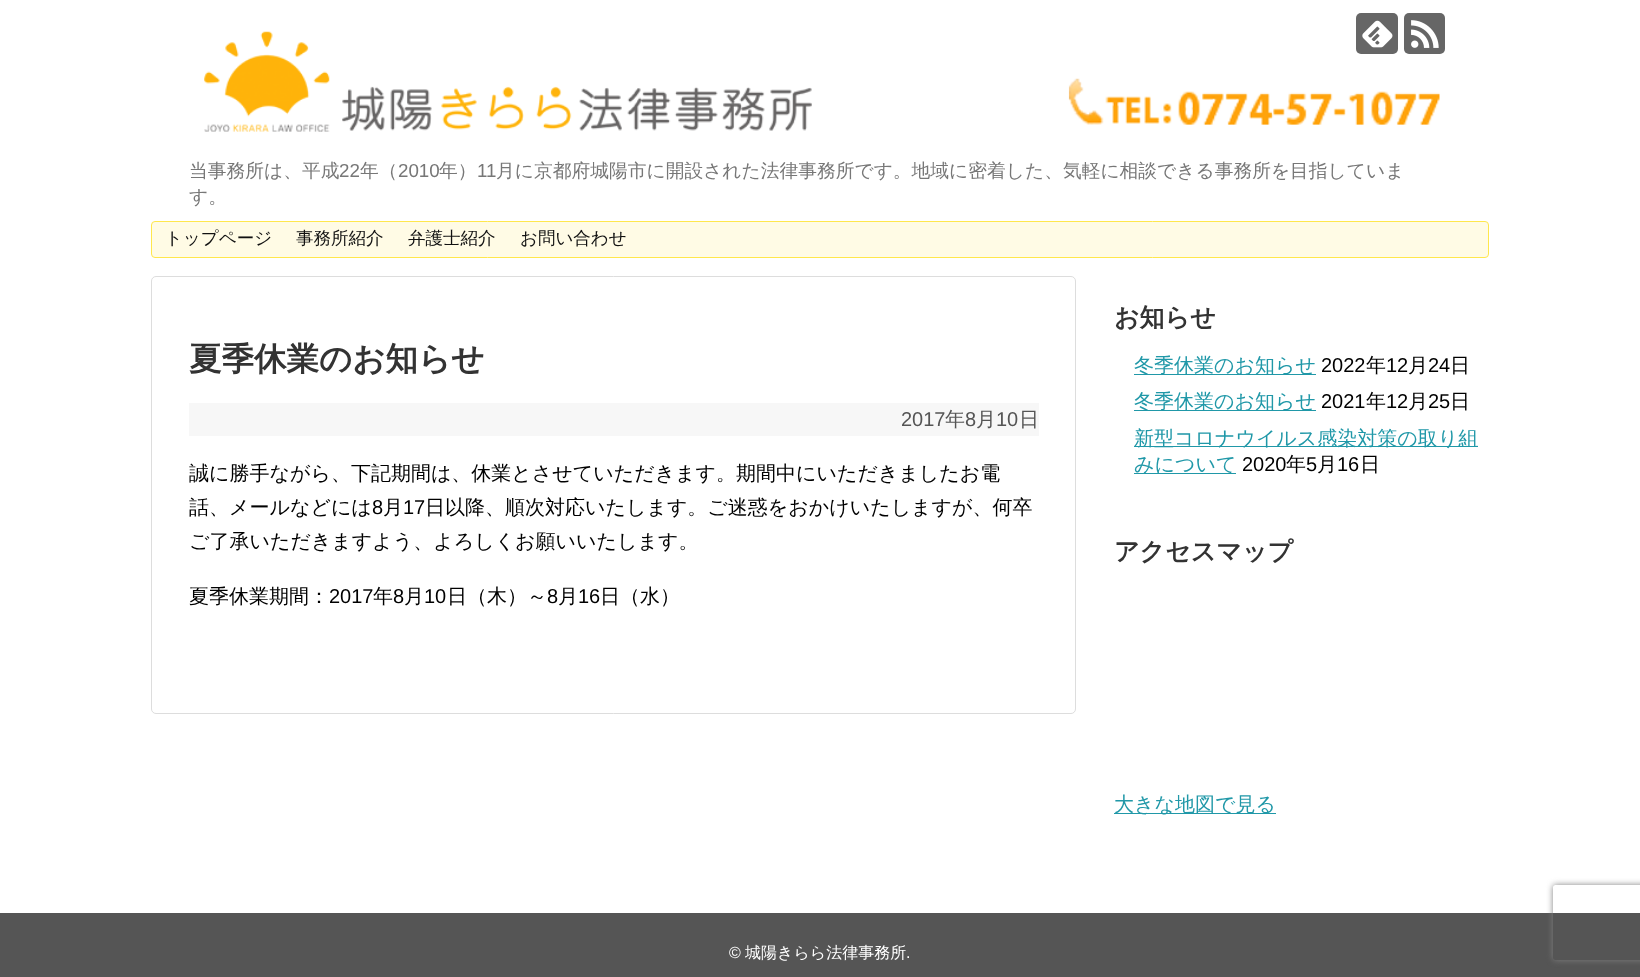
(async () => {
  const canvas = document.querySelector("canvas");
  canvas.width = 1640;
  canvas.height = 977;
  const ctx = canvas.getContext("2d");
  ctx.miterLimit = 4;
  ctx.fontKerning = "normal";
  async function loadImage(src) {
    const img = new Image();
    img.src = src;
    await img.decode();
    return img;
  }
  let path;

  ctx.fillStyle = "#ffffff";
  ctx.fillRect(0, 0, 1640, 977);
  ctx.drawImage(await loadImage("img/3.png"), 204, 31, 1236, 101);
  ctx.fillStyle = "#666666";
  ctx.beginPath();
  ctx.roundRect(1356, 13, 42, 41, 5);
  ctx.fill();
  ctx.drawImage(await loadImage("img/1.png"), 1362, 20, 31, 28);
  ctx.beginPath();
  ctx.roundRect(1404, 13, 41, 41, 5);
  ctx.fill();
  ctx.drawImage(await loadImage("img/2.png"), 1411, 20, 28, 28);
  ctx.fillStyle = "#fffbe5";
  ctx.beginPath();
  ctx.roundRect(151.5, 221.5, 1337, 36, 3.5);
  ctx.fill();
  ctx.strokeStyle = "#ffe74c";
  ctx.stroke();
  ctx.beginPath();
  ctx.roundRect(151.5, 276.5, 924, 437, 4.5);
  ctx.strokeStyle = "#dddddd";
  ctx.stroke();
  for (const [x, y, w, h, color] of [
    [189, 403, 850, 33, "#f7f7f7"],
    [1134, 374, 182, 1, "#2098a8"],
    [1134, 410, 182, 1, "#2098a8"],
    [1134, 446, 344, 1, "#2098a8"],
    [1134, 473, 102, 1, "#2098a8"],
    [1114, 813, 162, 1, "#2098a8"],
    [0, 913, 1640, 64, "#555555"],
  ]) {
    ctx.fillStyle = color;
    ctx.fillRect(x, y, w, h);
  }
  ctx.save();
  path = new Path2D("M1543 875H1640V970H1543ZM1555.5 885H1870.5C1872 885 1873 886 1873 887.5V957.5C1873 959 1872 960 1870.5 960H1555.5C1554 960 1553 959 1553 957.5V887.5C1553 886 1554 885 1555.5 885Z");
  ctx.clip(path, "evenodd");
  ctx.fillStyle = "#808080";
  ctx.filter = "blur(3px)";
  ctx.beginPath();
  ctx.roundRect(1553, 885, 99, 75, 2.5);
  ctx.fill();
  ctx.filter = "none";
  ctx.restore();
  ctx.font = "500 18.75px WenQuanYi Zen Hei";
  ctx.fillStyle = "#777777";
  ctx.fillText("当事務所は、平成", 189, 177);
  ctx.font = "18.75px Liberation Sans";
  ctx.fillText("22", 339, 177);
  ctx.font = "500 18.75px WenQuanYi Zen Hei";
  ctx.fillText("年（", 360, 177);
  ctx.font = "18.75px Liberation Sans";
  ctx.fillText("2010", 398, 177);
  ctx.font = "500 18.75px WenQuanYi Zen Hei";
  ctx.fillText("年）", 439, 177);
  ctx.font = "18.75px Liberation Sans";
  ctx.fillText("11", 477, 177);
  ctx.font = "500 18.75px WenQuanYi Zen Hei";
  ctx.fillText("月に京都府城陽市に開設された法律事務所です。地域に密着した、気軽に相談できる事務所を目指していま", 496, 177);
  ctx.fillText("す。", 189, 203);
  ctx.font = "500 17.5px WenQuanYi Zen Hei";
  ctx.fillStyle = "#111111";
  for (const [text, x, y] of [
    ["トップページ", 165, 244],
    ["事務所紹介", 296, 244],
    ["弁護士紹介", 408, 244],
    ["お問い合わせ", 520, 244],
  ]) {
    ctx.fillText(text, x, y);
  }
  ctx.font = "bold 32.5px WenQuanYi Zen Hei";
  ctx.fillStyle = "#333333";
  ctx.fillText("夏季休業のお知らせ", 189, 370);
  ctx.font = "20px Liberation Sans";
  ctx.fillStyle = "#555555";
  ctx.fillText("2017", 901, 426);
  ctx.font = "500 20px WenQuanYi Zen Hei";
  ctx.fillText("年", 945, 426);
  ctx.font = "20px Liberation Sans";
  ctx.fillText("8", 965, 426);
  ctx.font = "500 20px WenQuanYi Zen Hei";
  ctx.fillText("月", 976, 426);
  ctx.font = "20px Liberation Sans";
  ctx.fillText("10", 996, 426);
  ctx.font = "500 20px WenQuanYi Zen Hei";
  ctx.fillText("日", 1019, 426);
  ctx.fillStyle = "#000000";
  ctx.fillText("誠に勝手ながら、下記期間は、休業とさせていただきます。期間中にいただきましたお電", 189, 480);
  ctx.fillText("話、メールなどには", 189, 514);
  ctx.font = "20px Liberation Sans";
  ctx.fillText("8", 372, 514);
  ctx.font = "500 20px WenQuanYi Zen Hei";
  ctx.fillText("月", 383, 514);
  ctx.font = "20px Liberation Sans";
  ctx.fillText("17", 403, 514);
  ctx.font = "500 20px WenQuanYi Zen Hei";
  for (const [text, x, y] of [
    ["日以降、順次対応いたします。ご迷惑をおかけいたしますが、何卒", 425, 514],
    ["ご了承いただきますよう、よろしくお願いいたします。", 189, 548],
    ["夏季休業期間：", 189, 603],
  ]) {
    ctx.fillText(text, x, y);
  }
  ctx.font = "20px Liberation Sans";
  ctx.fillText("2017", 329, 603);
  ctx.font = "500 20px WenQuanYi Zen Hei";
  ctx.fillText("年", 373, 603);
  ctx.font = "20px Liberation Sans";
  ctx.fillText("8", 393, 603);
  ctx.font = "500 20px WenQuanYi Zen Hei";
  ctx.fillText("月", 404, 603);
  ctx.font = "20px Liberation Sans";
  ctx.fillText("10", 424, 603);
  ctx.font = "500 20px WenQuanYi Zen Hei";
  ctx.fillText("日（木）～", 447, 603);
  ctx.font = "20px Liberation Sans";
  ctx.fillText("8", 547, 603);
  ctx.font = "500 20px WenQuanYi Zen Hei";
  ctx.fillText("月", 558, 603);
  ctx.font = "20px Liberation Sans";
  ctx.fillText("16", 578, 603);
  ctx.font = "500 20px WenQuanYi Zen Hei";
  ctx.fillText("日（水）", 600, 603);
  ctx.font = "bold 25px WenQuanYi Zen Hei";
  ctx.fillStyle = "#333333";
  ctx.fillText("お知らせ", 1114, 326);
  ctx.font = "500 20px WenQuanYi Zen Hei";
  ctx.fillStyle = "#2098a8";
  ctx.fillText("冬季休業のお知らせ", 1134, 372);
  ctx.font = "20px Liberation Sans";
  ctx.fillStyle = "#000000";
  ctx.fillText("2022", 1321, 372);
  ctx.font = "500 20px WenQuanYi Zen Hei";
  ctx.fillText("年", 1366, 372);
  ctx.font = "20px Liberation Sans";
  ctx.fillText("12", 1386, 372);
  ctx.font = "500 20px WenQuanYi Zen Hei";
  ctx.fillText("月", 1408, 372);
  ctx.font = "20px Liberation Sans";
  ctx.fillText("24", 1428, 372);
  ctx.font = "500 20px WenQuanYi Zen Hei";
  ctx.fillText("日", 1450, 372);
  ctx.fillStyle = "#2098a8";
  ctx.fillText("冬季休業のお知らせ", 1134, 408);
  ctx.font = "20px Liberation Sans";
  ctx.fillStyle = "#000000";
  ctx.fillText("2021", 1321, 408);
  ctx.font = "500 20px WenQuanYi Zen Hei";
  ctx.fillText("年", 1366, 408);
  ctx.font = "20px Liberation Sans";
  ctx.fillText("12", 1386, 408);
  ctx.font = "500 20px WenQuanYi Zen Hei";
  ctx.fillText("月", 1408, 408);
  ctx.font = "20px Liberation Sans";
  ctx.fillText("25", 1428, 408);
  ctx.font = "500 20px WenQuanYi Zen Hei";
  ctx.fillText("日", 1450, 408);
  ctx.fillStyle = "#2098a8";
  ctx.fillText("新型コロナウイルス感染対策の取り組", 1134, 445);
  ctx.fillText("みについて", 1134, 471);
  ctx.font = "20px Liberation Sans";
  ctx.fillStyle = "#000000";
  ctx.fillText("2020", 1242, 471);
  ctx.font = "500 20px WenQuanYi Zen Hei";
  ctx.fillText("年", 1286, 471);
  ctx.font = "20px Liberation Sans";
  ctx.fillText("5", 1306, 471);
  ctx.font = "500 20px WenQuanYi Zen Hei";
  ctx.fillText("月", 1317, 471);
  ctx.font = "20px Liberation Sans";
  ctx.fillText("16", 1337, 471);
  ctx.font = "500 20px WenQuanYi Zen Hei";
  ctx.fillText("日", 1360, 471);
  ctx.font = "bold 25px WenQuanYi Zen Hei";
  ctx.fillStyle = "#333333";
  ctx.fillText("アクセスマップ", 1114, 560);
  ctx.font = "500 20px WenQuanYi Zen Hei";
  ctx.fillStyle = "#2098a8";
  ctx.fillText("大きな地図で見る", 1114, 811);
  ctx.font = "16px Liberation Sans";
  ctx.fillStyle = "#ffffff";
  ctx.fillText("©", 729, 958);
  ctx.font = "500 16px WenQuanYi Zen Hei";
  ctx.fillText("城陽きらら法律事務所", 745, 958);
  ctx.font = "16px Liberation Sans";
  ctx.fillText(".", 906, 958);
})();
